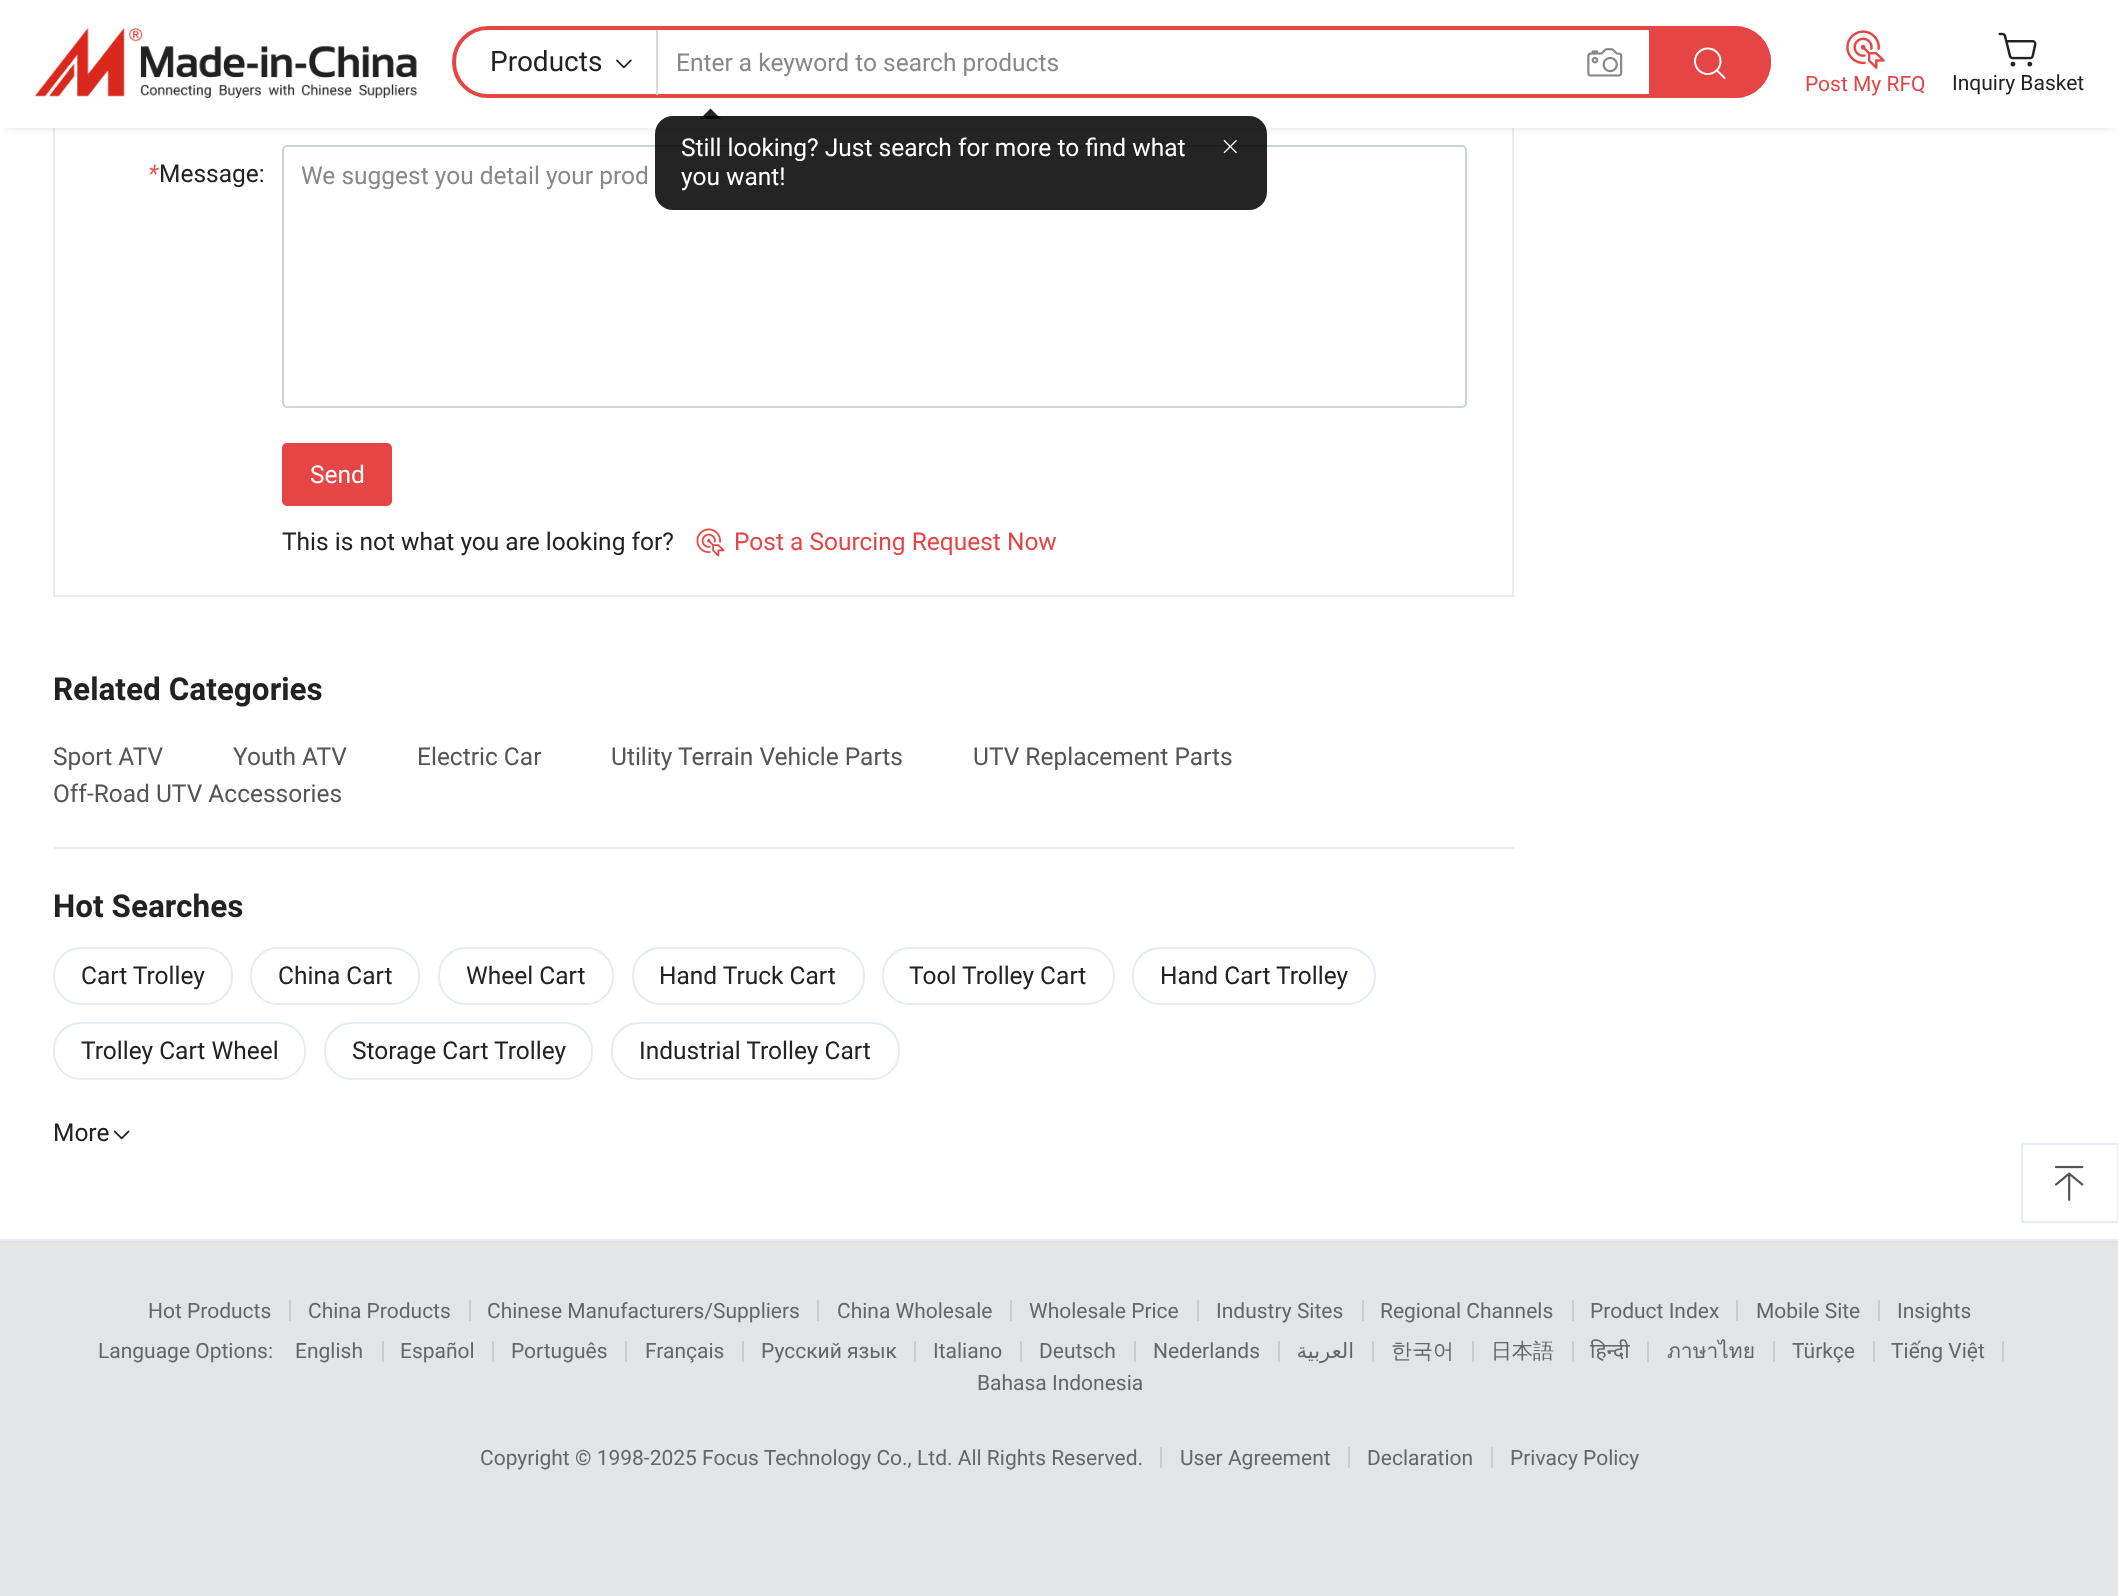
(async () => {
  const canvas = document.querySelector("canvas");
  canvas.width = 2118;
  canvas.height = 1596;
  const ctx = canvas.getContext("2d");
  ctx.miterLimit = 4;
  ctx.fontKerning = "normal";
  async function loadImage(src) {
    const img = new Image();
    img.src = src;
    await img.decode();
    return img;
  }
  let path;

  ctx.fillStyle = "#ffffff";
  ctx.fillRect(0, 0, 2118, 1596);
  ctx.strokeStyle = "#e6ecf2";
  ctx.lineWidth = 2;
  ctx.strokeRect(54, -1, 1459, 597);
  ctx.fillStyle = "rgba(0, 0, 0, 0.12)";
  ctx.filter = "blur(4.5px)";
  ctx.beginPath();
  ctx.rect(5, 11, 2109, 117);
  ctx.fill();
  ctx.filter = "none";
  ctx.fillStyle = "#ffffff";
  ctx.fillRect(0, 0, 2118, 128);
  ctx.drawImage(await loadImage("img/1.png"), 35, 28, 382, 70);
  ctx.beginPath();
  ctx.roundRect(454, 28, 1315, 68, 34);
  ctx.strokeStyle = "#e64545";
  ctx.lineWidth = 4;
  ctx.stroke();
  ctx.fillStyle = "#dadada";
  ctx.fillRect(656, 30, 2, 65);
  ctx.drawImage(await loadImage("img/2.png"), 616, 59, 16, 10);
  ctx.drawImage(await loadImage("img/3.png"), 1587, 48, 36, 29);
  ctx.fillStyle = "#e64545";
  ctx.beginPath();
  ctx.roundRect(1649, 26, 122, 72, [0, 36, 36, 0]);
  ctx.fill();
  ctx.drawImage(await loadImage("img/4.png"), 1694, 47, 32, 32);
  ctx.beginPath();
  ctx.roundRect(283, 146, 1183, 261, 4);
  ctx.strokeStyle = "#ced3d9";
  ctx.lineWidth = 2;
  ctx.stroke();
  ctx.fillStyle = "rgba(0, 0, 0, 0.86)";
  ctx.beginPath();
  ctx.roundRect(655, 116, 612, 94, 18);
  ctx.fill();
  path = new Path2D("M721 119H700L710.5 108.5Z");
  ctx.fill(path);
  ctx.drawImage(await loadImage("img/5.png"), 1223, 140, 14, 14);
  ctx.drawImage(await loadImage("img/6.png"), 1846, 30, 39, 39);
  ctx.drawImage(await loadImage("img/7.png"), 1998, 32, 39, 35);
  ctx.fillStyle = "#e6ecf2";
  ctx.fillRect(0, 1239, 2118, 2);
  ctx.fillStyle = "#e64545";
  ctx.beginPath();
  ctx.roundRect(283, 444, 108, 61, 4);
  ctx.fill();
  ctx.strokeStyle = "#e64545";
  ctx.stroke();
  ctx.drawImage(await loadImage("img/8.png"), 696, 528, 29, 29);
  ctx.fillStyle = "#e6ecf2";
  ctx.fillRect(53, 847, 1461, 2);
  ctx.beginPath();
  ctx.roundRect(54, 948, 178, 56, 27);
  ctx.strokeStyle = "#e6ecf2";
  ctx.stroke();
  ctx.beginPath();
  ctx.roundRect(251, 948, 168, 56, 27);
  ctx.stroke();
  ctx.beginPath();
  ctx.roundRect(439, 948, 174, 56, 27);
  ctx.stroke();
  ctx.beginPath();
  ctx.roundRect(633, 948, 231, 56, 27);
  ctx.stroke();
  ctx.beginPath();
  ctx.roundRect(883, 948, 231, 56, 27);
  ctx.stroke();
  ctx.beginPath();
  ctx.roundRect(1133, 948, 242, 56, 27);
  ctx.stroke();
  ctx.beginPath();
  ctx.roundRect(54, 1023, 251, 56, 27);
  ctx.stroke();
  ctx.beginPath();
  ctx.roundRect(325, 1023, 267, 56, 27);
  ctx.stroke();
  ctx.beginPath();
  ctx.roundRect(612, 1023, 287, 56, 27);
  ctx.stroke();
  ctx.drawImage(await loadImage("img/9.png"), 113, 1130, 17, 10);
  ctx.strokeRect(2022, 1144, 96, 78);
  ctx.drawImage(await loadImage("img/10.png"), 2054, 1165, 30, 36);
  for (const [x, y, w, h, color] of [
    [0, 1243, 2118, 353, "#e3e4e6"],
    [0, 1241, 2118, 2, "#dae0e6"],
    [289, 1300, 2, 21, "#cccccc"],
    [469, 1300, 2, 21, "#cccccc"],
    [817, 1300, 2, 21, "#cccccc"],
    [1010, 1300, 2, 21, "#cccccc"],
    [1197, 1300, 2, 21, "#cccccc"],
    [1362, 1300, 2, 21, "#cccccc"],
    [1572, 1300, 2, 21, "#cccccc"],
    [1736, 1300, 2, 21, "#cccccc"],
    [1878, 1300, 2, 21, "#cccccc"],
    [382, 1341, 2, 21, "#cccccc"],
    [492, 1341, 2, 21, "#cccccc"],
    [625, 1341, 2, 21, "#cccccc"],
    [742, 1341, 2, 21, "#cccccc"],
    [914, 1341, 2, 21, "#cccccc"],
    [1020, 1341, 2, 21, "#cccccc"],
    [1134, 1341, 2, 21, "#cccccc"],
    [1278, 1341, 2, 21, "#cccccc"],
    [1372, 1341, 2, 21, "#cccccc"],
    [1472, 1341, 2, 21, "#cccccc"],
    [1572, 1341, 2, 21, "#cccccc"],
    [1647, 1341, 2, 21, "#cccccc"],
    [1773, 1341, 2, 21, "#cccccc"],
    [1873, 1341, 2, 21, "#cccccc"],
    [2002, 1341, 2, 21, "#cccccc"],
    [1160, 1447, 2, 21, "#cccccc"],
    [1348, 1447, 2, 21, "#cccccc"],
    [1491, 1447, 2, 21, "#cccccc"],
  ]) {
    ctx.fillStyle = color;
    ctx.fillRect(x, y, w, h);
  }
  ctx.font = "28px Roboto";
  ctx.fillStyle = "#222222";
  ctx.fillText("Products", 490, 71);
  ctx.font = "24.5px Roboto";
  ctx.fillStyle = "#888888";
  ctx.fillText("Enter a keyword to search products", 676, 71);
  ctx.fillStyle = "#ffffff";
  ctx.fillText("Still looking? Just search for more to find what", 681, 156);
  ctx.fillText("you want!", 681, 185);
  ctx.font = "21px Roboto";
  ctx.fillStyle = "#e64545";
  ctx.fillText("Post My RFQ", 1805, 91);
  ctx.fillStyle = "#222222";
  ctx.fillText("Inquiry Basket", 1952, 90);
  ctx.font = "italic 24.5px Roboto";
  ctx.fillStyle = "#e85858";
  ctx.fillText("*", 148, 182);
  ctx.font = "24.5px Roboto";
  ctx.fillStyle = "#222222";
  ctx.fillText("Message:", 159, 182);
  ctx.fillStyle = "#888888";
  ctx.fillText("We suggest you detail your prod", 301, 184);
  ctx.fillStyle = "#ffffff";
  ctx.fillText("Send", 310, 483);
  ctx.fillStyle = "#222222";
  ctx.fillText("This is not what you are looking for?", 282, 550);
  ctx.fillStyle = "#e64545";
  ctx.fillText("Post a Sourcing Request Now", 734, 550);
  ctx.font = "bold 31.5px Roboto";
  ctx.fillStyle = "#222222";
  ctx.fillText("Related Categories", 53, 700);
  ctx.font = "24.5px Roboto";
  ctx.fillStyle = "#555555";
  for (const [text, x, y] of [
    ["Sport ATV", 53, 765],
    ["Youth ATV", 233, 765],
    ["Electric Car", 417, 765],
    ["Utility Terrain Vehicle Parts", 611, 765],
    ["UTV Replacement Parts", 973, 765],
    ["Off-Road UTV Accessories", 53, 802],
  ]) {
    ctx.fillText(text, x, y);
  }
  ctx.font = "bold 31.5px Roboto";
  ctx.fillStyle = "#222222";
  ctx.fillText("Hot Searches", 53, 917);
  ctx.font = "24.5px Roboto";
  for (const [text, x, y] of [
    ["Cart Trolley", 81, 984],
    ["China Cart", 278, 984],
    ["Wheel Cart", 466, 984],
    ["Hand Truck Cart", 659, 984],
    ["Tool Trolley Cart", 909, 984],
    ["Hand Cart Trolley", 1160, 984],
    ["Trolley Cart Wheel", 81, 1059],
    ["Storage Cart Trolley", 352, 1059],
    ["Industrial Trolley Cart", 639, 1059],
    ["More", 53, 1141],
  ]) {
    ctx.fillText(text, x, y);
  }
  ctx.font = "21px Roboto";
  ctx.fillStyle = "#666666";
  for (const [text, x, y] of [
    ["Hot Products", 148, 1318],
    ["China Products", 308, 1318],
    ["Chinese Manufacturers/Suppliers", 487, 1318],
    ["China Wholesale", 837, 1318],
    ["Wholesale Price", 1029, 1318],
    ["Industry Sites", 1216, 1318],
    ["Regional Channels", 1380, 1318],
    ["Product Index", 1590, 1318],
    ["Mobile Site", 1756, 1318],
    ["Insights", 1897, 1318],
    ["Language Options:", 98, 1358],
    ["English", 295, 1358],
    ["Español", 400, 1358],
    ["Português", 511, 1358],
    ["Français", 645, 1358],
    ["Русский язык", 761, 1358],
    ["Italiano", 933, 1358],
    ["Deutsch", 1039, 1358],
    ["Nederlands", 1153, 1358],
  ]) {
    ctx.fillText(text, x, y);
  }
  ctx.direction = "rtl";
  ctx.font = "21px DejaVu Sans";
  ctx.fillText("العربية", 1354, 1358);
  ctx.direction = "ltr";
  ctx.font = "500 21px WenQuanYi Zen Hei";
  ctx.fillText("한국어", 1391, 1358);
  ctx.fillText("日本語", 1491, 1358);
  ctx.font = "21px Noto Sans";
  ctx.fillText("हिन्दी", 1590, 1358);
  ctx.font = "21px Loma";
  ctx.fillText("ภาษาไทย", 1667, 1358);
  ctx.font = "21px Roboto";
  for (const [text, x, y] of [
    ["Türkçe", 1792, 1358],
    ["Tiếng Việt", 1891, 1358],
    ["Bahasa Indonesia", 977, 1390],
    ["Copyright © 1998-2025 Focus Technology Co., Ltd. All Rights Reserved.", 480, 1465],
    ["User Agreement", 1180, 1465],
    ["Declaration", 1367, 1465],
    ["Privacy Policy", 1510, 1465],
  ]) {
    ctx.fillText(text, x, y);
  }
})();
